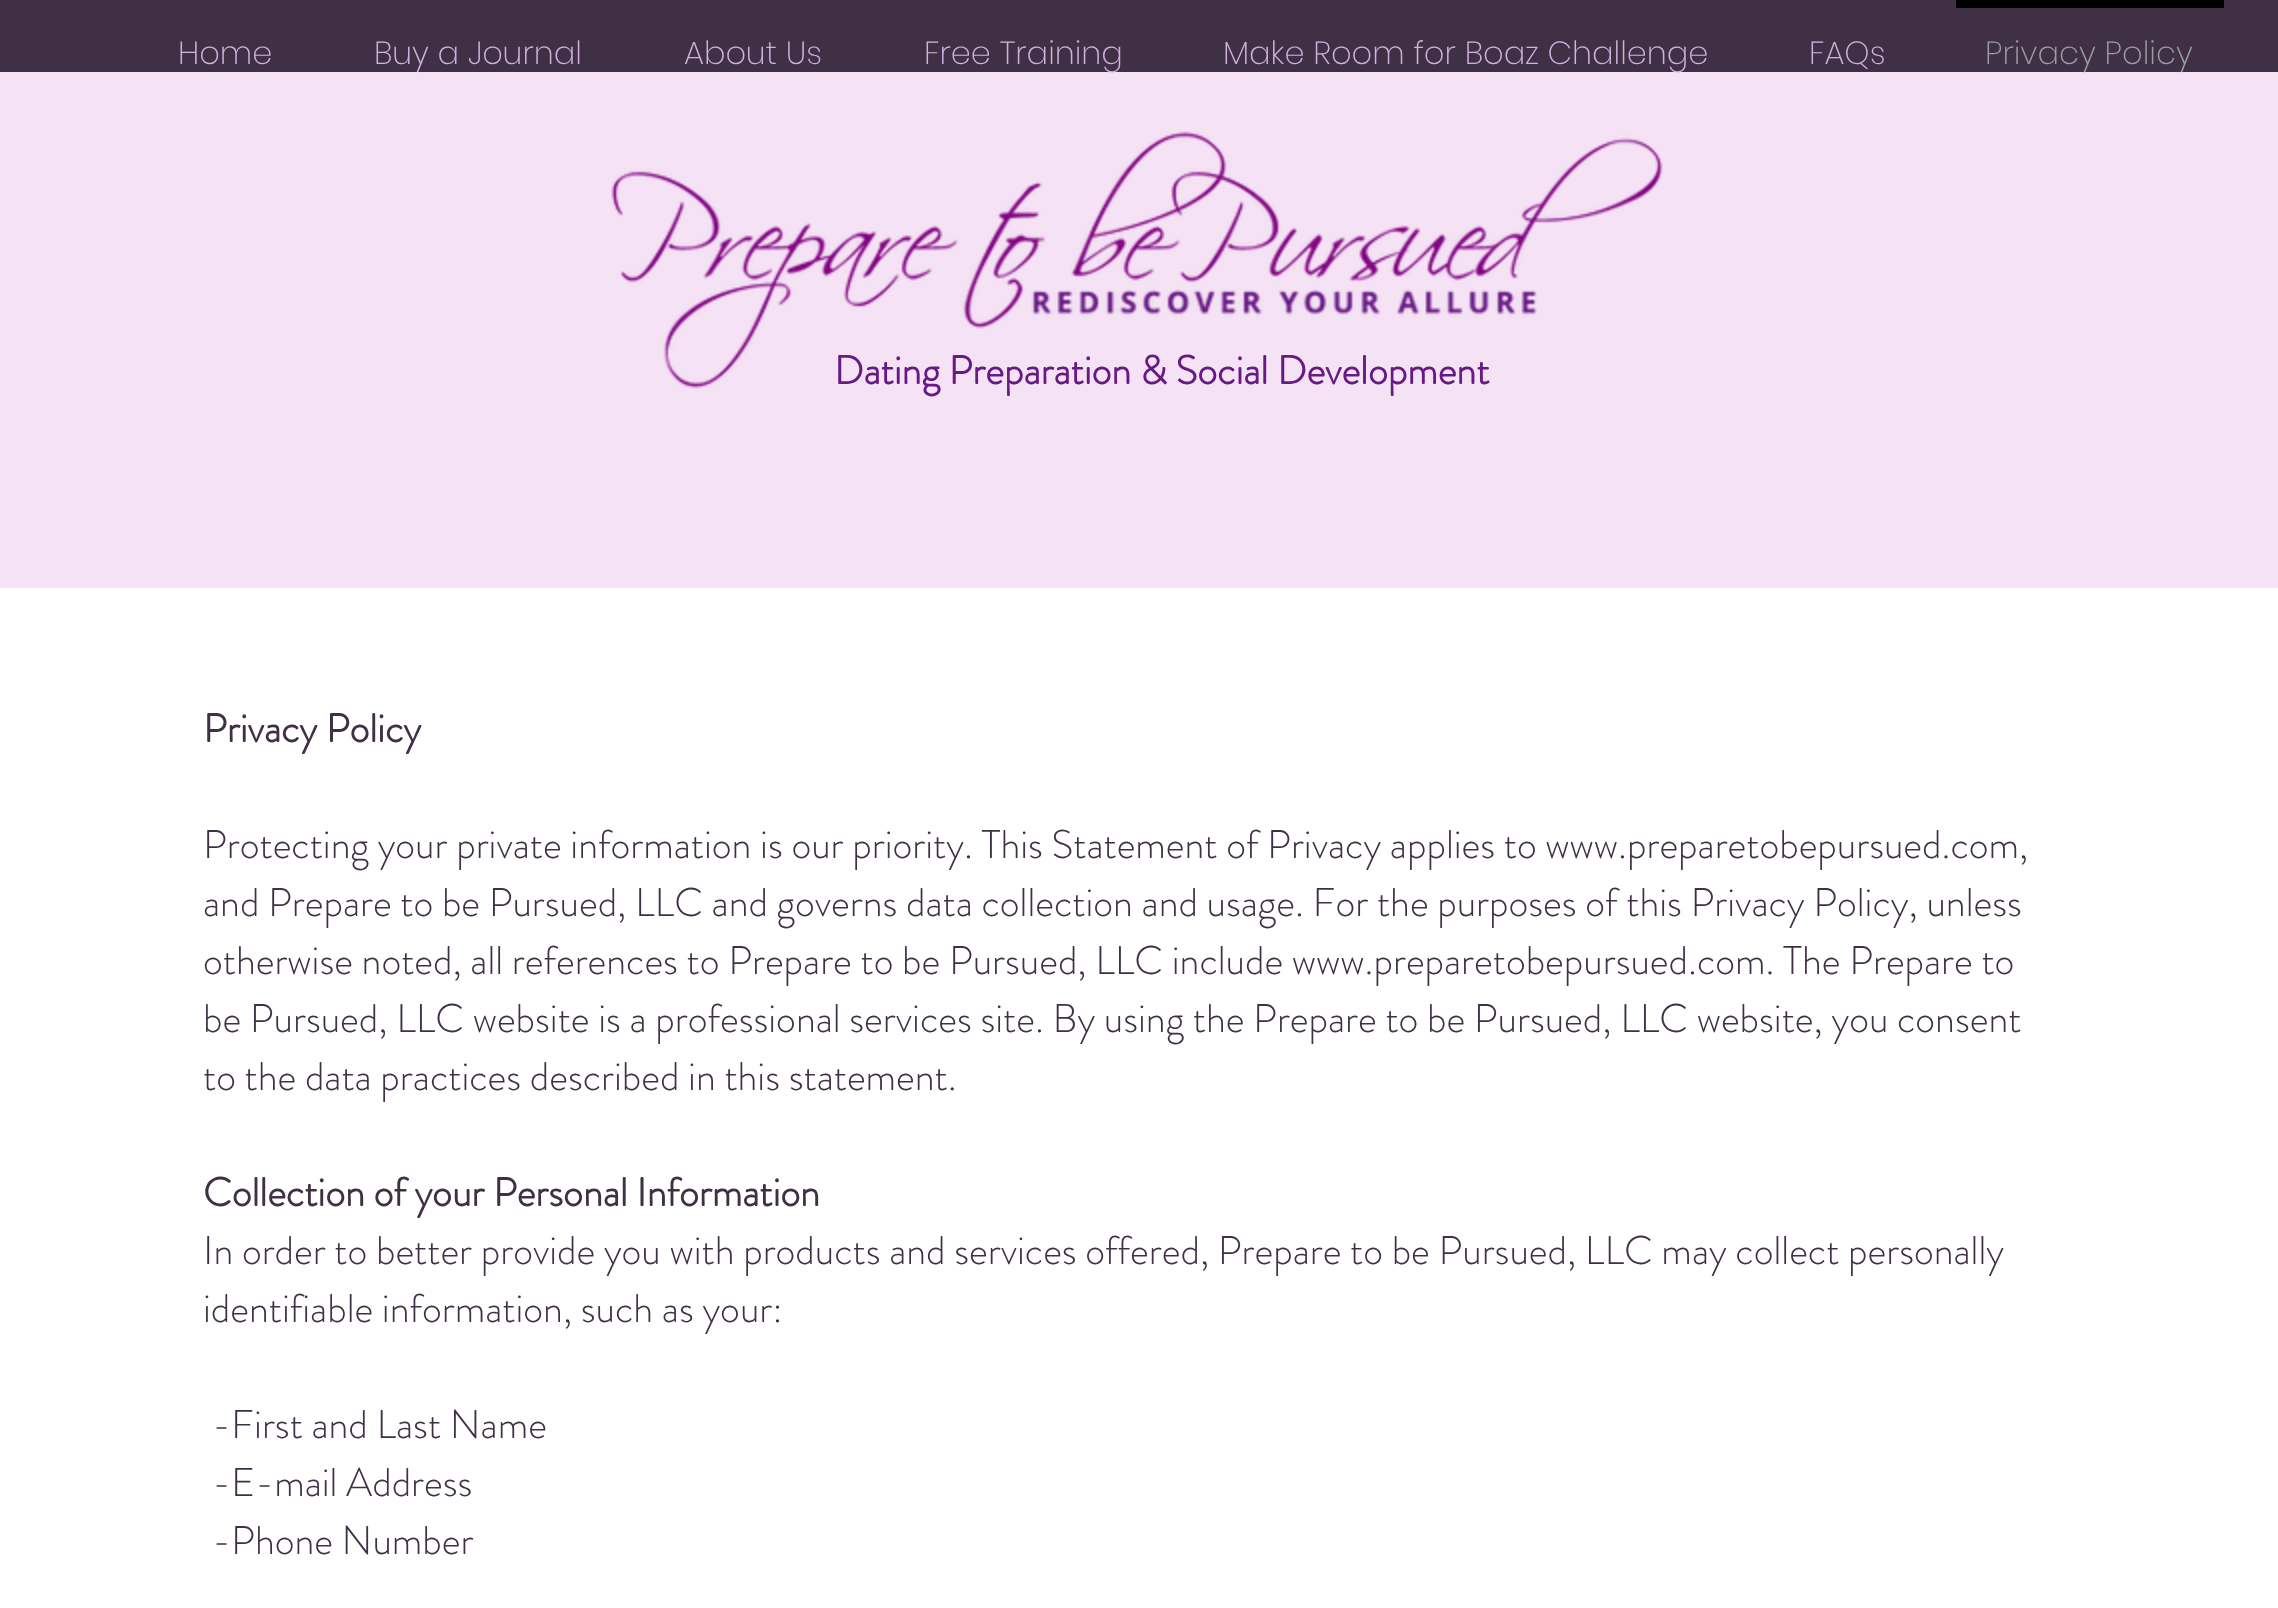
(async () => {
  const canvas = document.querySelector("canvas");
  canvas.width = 2278;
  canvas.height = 1608;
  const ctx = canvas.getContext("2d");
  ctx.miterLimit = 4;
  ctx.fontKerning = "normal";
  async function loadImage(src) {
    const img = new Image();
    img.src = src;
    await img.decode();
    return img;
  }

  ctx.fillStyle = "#ffffff";
  ctx.fillRect(0, 0, 2278, 1608);
  for (const [x, y, w, h, color] of [
    [0, 0, 2278, 72, "#403046"],
    [1956, 0, 268, 8, "#000000"],
    [0, 72, 2278, 516, "#f5e3f5"],
  ]) {
    ctx.fillStyle = color;
    ctx.fillRect(x, y, w, h);
  }
  ctx.drawImage(await loadImage("img/1.png"), 611, 131, 1052, 258);
  ctx.font = "200 32px Poppins";
  ctx.fillStyle = "#d2b1df";
  for (const [text, x, y] of [
    ["Home", 178, 64],
    ["Buy a Journal", 374, 64],
    ["About Us", 684, 64],
    ["Free Training", 924, 64],
    ["Make Room for Boaz Challenge", 1223, 64],
    ["FAQs", 1809, 64],
  ]) {
    ctx.fillText(text, x, y);
  }
  ctx.fillStyle = "#9a9fa5";
  ctx.fillText("Privacy Policy", 1985, 64);
  ctx.font = "bold 40px 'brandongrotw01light'";
  ctx.fillStyle = "#671985";
  ctx.fillText("Dating Preparation & Social Development", 834, 384);
  ctx.fillStyle = "#403046";
  ctx.fillText("Privacy Policy", 203, 742);
  ctx.font = "300 40px 'brandongrotw01light'";
  for (const [text, x, y] of [
    ["Protecting your private information is our priority. This Statement of Privacy applies to www.preparetobepursued.com,", 203, 858],
    ["and Prepare to be Pursued, LLC and governs data collection and usage. For the purposes of this Privacy Policy, unless", 203, 916],
    ["otherwise noted, all references to Prepare to be Pursued, LLC include www.preparetobepursued.com. The Prepare to", 203, 974],
    ["be Pursued, LLC website is a professional services site. By using the Prepare to be Pursued, LLC website, you consent", 203, 1032],
    ["to the data practices described in this statement.", 203, 1090],
  ]) {
    ctx.fillText(text, x, y);
  }
  ctx.font = "bold 40px 'brandongrotw01light'";
  ctx.fillText("Collection of your Personal Information", 203, 1206);
  ctx.font = "300 40px 'brandongrotw01light'";
  for (const [text, x, y] of [
    ["In order to better provide you with products and services offered, Prepare to be Pursued, LLC may collect personally", 203, 1264],
    ["identifiable information, such as your:", 203, 1322],
    ["-First and Last Name", 212, 1438],
    ["-E-mail Address", 212, 1496],
    ["-Phone Number", 212, 1554],
  ]) {
    ctx.fillText(text, x, y);
  }
})();
